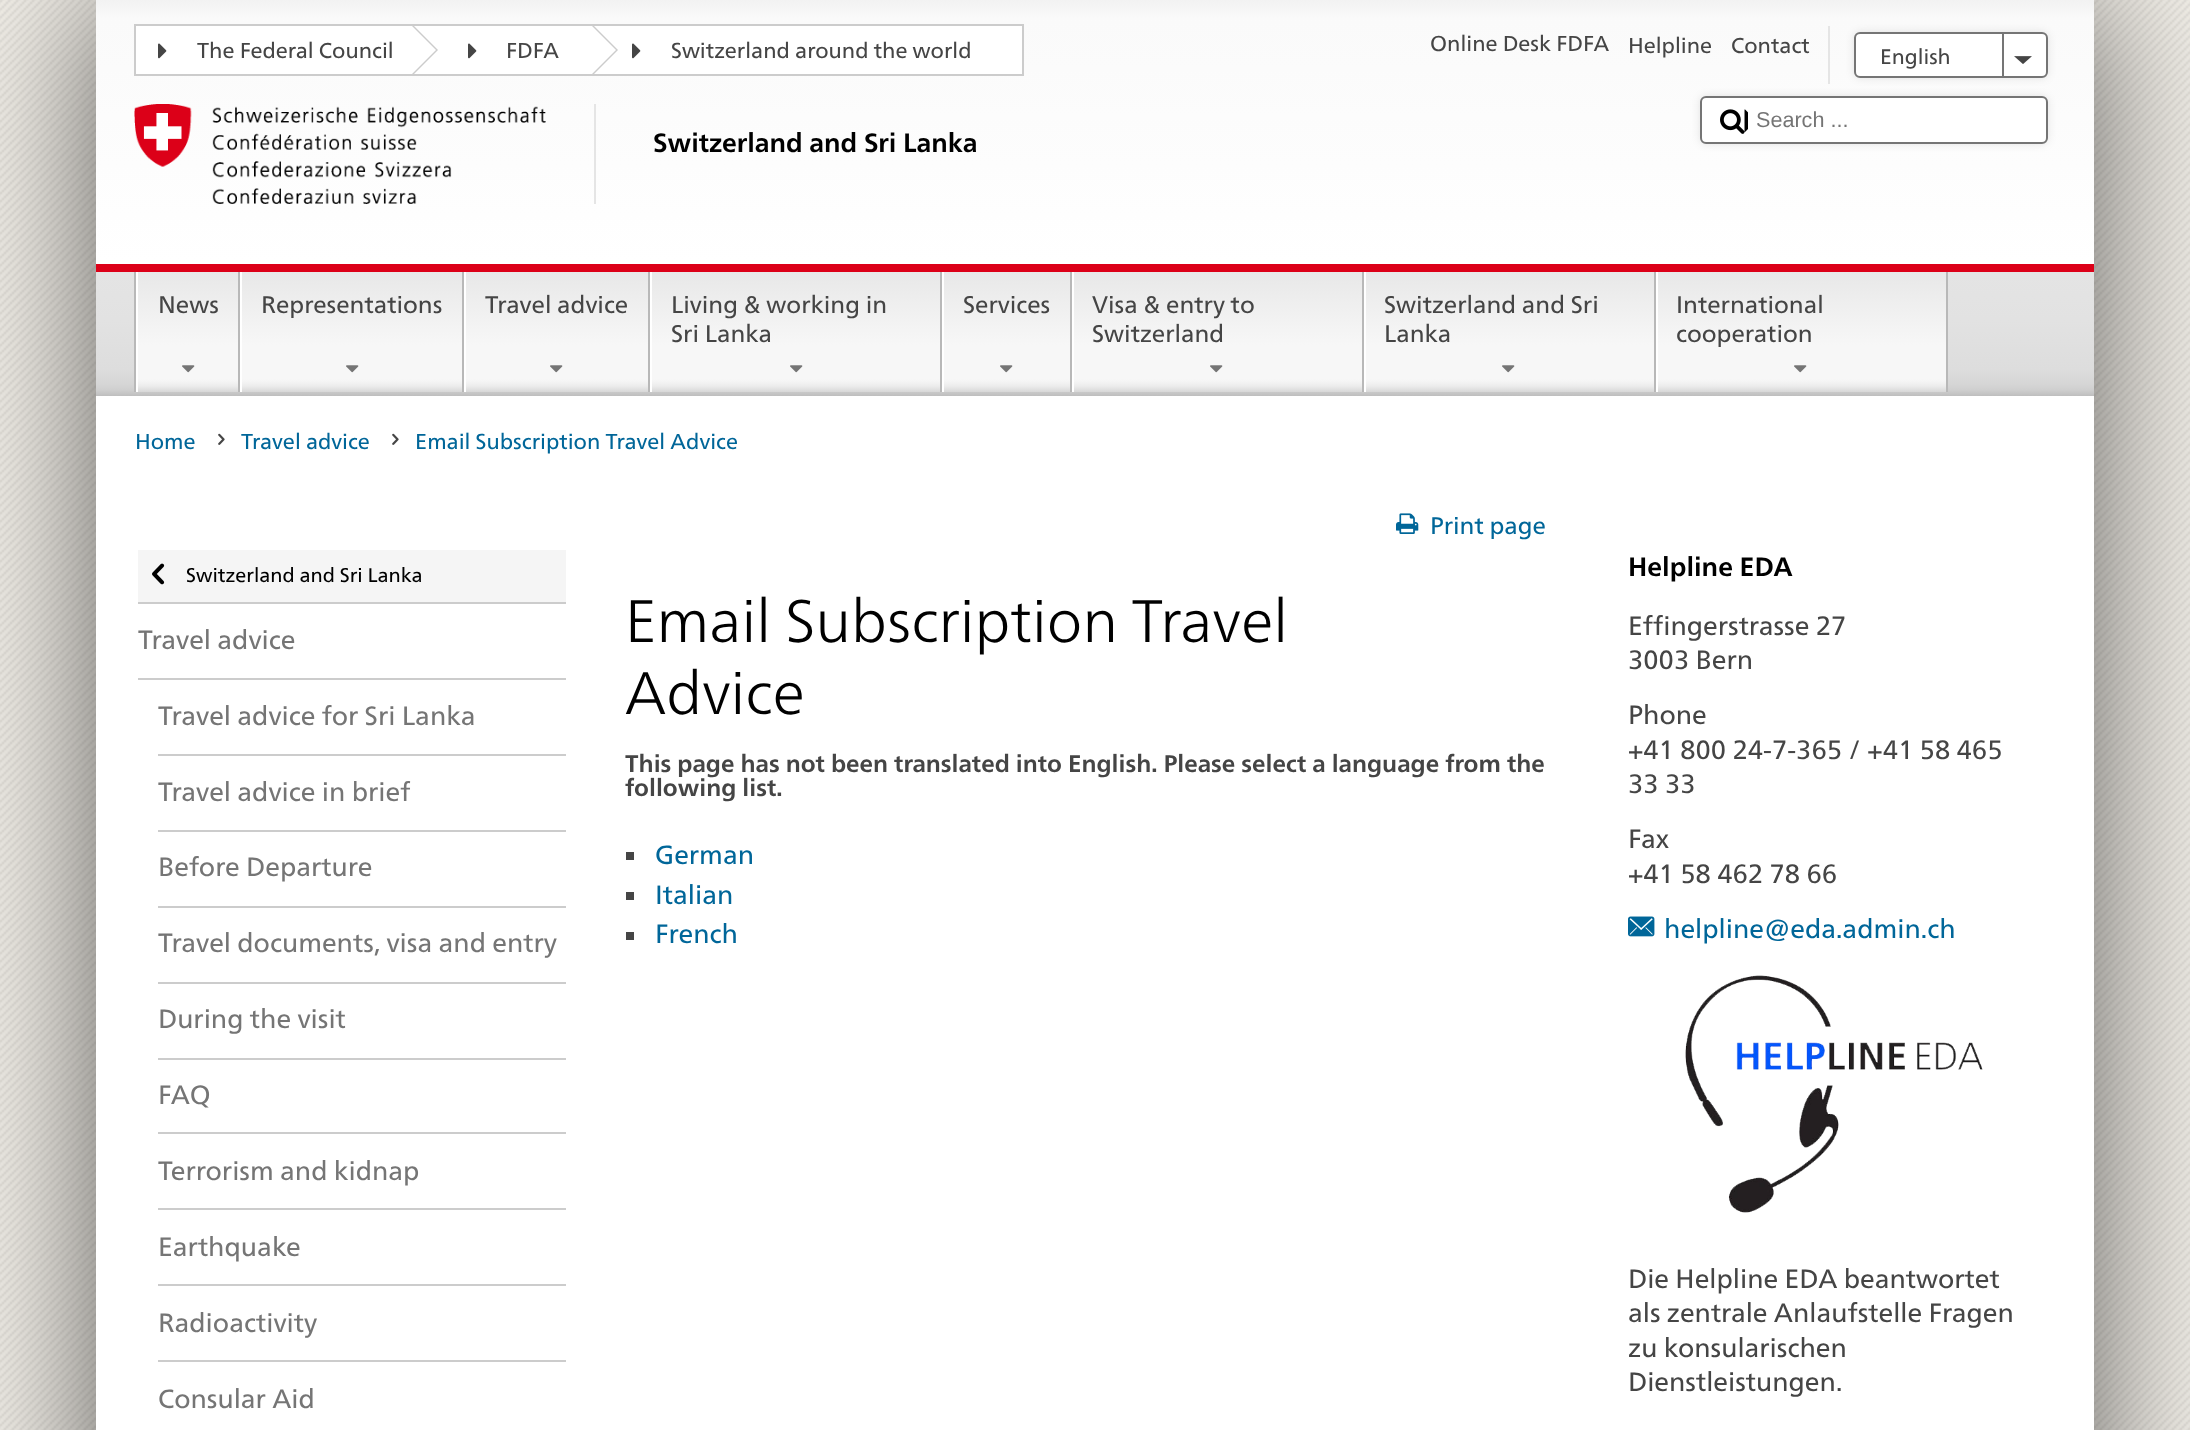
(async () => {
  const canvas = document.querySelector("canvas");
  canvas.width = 2190;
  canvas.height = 1430;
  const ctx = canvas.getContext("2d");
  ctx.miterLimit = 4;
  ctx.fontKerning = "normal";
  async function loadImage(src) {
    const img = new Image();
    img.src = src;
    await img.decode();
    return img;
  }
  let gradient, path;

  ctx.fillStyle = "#ffffff";
  ctx.fillRect(0, 0, 2190, 1430);
  ctx.drawImage(await loadImage("img/1.png"), 0, 0, 2190, 1430);
  ctx.fillStyle = "rgba(0, 0, 0, 0.6)";
  ctx.filter = "blur(72px)";
  ctx.beginPath();
  ctx.rect(96, 0, 1998, 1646);
  ctx.fill();
  ctx.filter = "none";
  ctx.fillStyle = "#ffffff";
  ctx.fillRect(96, 396, 1998, 1034);
  gradient = ctx.createLinearGradient(1095, 0, 1095, 264);
  gradient.addColorStop(0, "#f2f2f2");
  gradient.addColorStop(0.07, "#fafafa");
  gradient.addColorStop(1, "#ffffff");
  ctx.fillStyle = gradient;
  ctx.fillRect(96, 0, 1998, 264);
  ctx.fillStyle = "#ffffff";
  ctx.beginPath();
  ctx.rect(135, 25, 888, 50);
  ctx.fill();
  ctx.strokeStyle = "#cccccc";
  ctx.lineWidth = 2;
  ctx.stroke();
  ctx.fillStyle = "#cccccc";
  path = new Path2D("M412 76V24L438 50Z");
  ctx.fill(path);
  ctx.drawImage(await loadImage("img/2.png"), 158, 43, 9, 16);
  ctx.fillStyle = "#ffffff";
  path = new Path2D("M412 74V26L436 50Z");
  ctx.fill(path);
  ctx.fillStyle = "#cccccc";
  path = new Path2D("M592 76V24L618 50Z");
  ctx.fill(path);
  ctx.drawImage(await loadImage("img/2.png"), 468, 43, 9, 16);
  ctx.fillStyle = "#ffffff";
  path = new Path2D("M592 74V26L616 50Z");
  ctx.fill(path);
  ctx.drawImage(await loadImage("img/2.png"), 632, 43, 9, 16);
  ctx.fillStyle = "rgba(0, 0, 0, 0.1)";
  ctx.filter = "blur(4px)";
  ctx.beginPath();
  ctx.roundRect(1700, 96, 348, 48, 6);
  ctx.fill();
  ctx.filter = "none";
  ctx.fillStyle = "#e5e5e5";
  ctx.fillRect(1828, 26, 2, 58);
  ctx.fillStyle = "rgba(0, 0, 0, 0.1)";
  ctx.filter = "blur(4px)";
  ctx.beginPath();
  ctx.roundRect(1854, 32, 194, 46, 6);
  ctx.fill();
  ctx.filter = "none";
  ctx.fillStyle = "#ffffff";
  ctx.beginPath();
  ctx.roundRect(1855, 33, 192, 44, 5);
  ctx.fill();
  ctx.strokeStyle = "#757575";
  ctx.stroke();
  ctx.drawImage(await loadImage("img/3.png"), 2014, 56, 18, 8);
  ctx.fillStyle = "#757575";
  ctx.fillRect(2002, 32, 2, 46);
  ctx.fillStyle = "#ffffff";
  ctx.beginPath();
  ctx.roundRect(1701, 97, 346, 46, 5);
  ctx.fill();
  ctx.stroke();
  ctx.drawImage(await loadImage("img/4.png"), 1720, 109, 28, 25);
  ctx.drawImage(await loadImage("img/5.png"), 134, 104, 412, 100);
  ctx.fillStyle = "#e5e5e5";
  ctx.fillRect(594, 104, 2, 100);
  gradient = ctx.createLinearGradient(1095, 272, 1095, 396);
  gradient.addColorStop(0, "#e4e4e4");
  gradient.addColorStop(0.39, "#e2e2e2");
  gradient.addColorStop(0.79, "#dddddd");
  gradient.addColorStop(0.91, "#d5d5d5");
  gradient.addColorStop(0.95, "#cfcfcf");
  gradient.addColorStop(1, "#bebebe");
  ctx.fillStyle = gradient;
  ctx.fillRect(96, 272, 1998, 124);
  ctx.fillStyle = "#dc0018";
  ctx.fillRect(96, 264, 1998, 8);
  ctx.fillStyle = "#b8b8b8";
  ctx.fillRect(134, 272, 2, 120);
  gradient = ctx.createLinearGradient(188, 272, 188, 392);
  gradient.addColorStop(0, "#e8e8e8");
  gradient.addColorStop(0.61, "#f7f7f7");
  gradient.addColorStop(0.89, "#f7f7f7");
  gradient.addColorStop(0.91, "#f5f5f5");
  gradient.addColorStop(0.95, "#ececec");
  gradient.addColorStop(1, "#d7d7d7");
  ctx.fillStyle = gradient;
  ctx.fillRect(138, 272, 100, 120);
  ctx.fillStyle = "#b8b8b8";
  ctx.fillRect(238, 272, 2, 120);
  ctx.fillStyle = "#ffffff";
  ctx.fillRect(136, 272, 2, 120);
  ctx.drawImage(await loadImage("img/6.png"), 182, 365, 13, 8);
  gradient = ctx.createLinearGradient(352, 272, 352, 392);
  gradient.addColorStop(0, "#e8e8e8");
  gradient.addColorStop(0.61, "#f7f7f7");
  gradient.addColorStop(0.89, "#f7f7f7");
  gradient.addColorStop(0.91, "#f5f5f5");
  gradient.addColorStop(0.95, "#ececec");
  gradient.addColorStop(1, "#d7d7d7");
  ctx.fillStyle = gradient;
  ctx.fillRect(242, 272, 220, 120);
  ctx.fillStyle = "#b8b8b8";
  ctx.fillRect(462, 272, 2, 120);
  ctx.fillStyle = "#ffffff";
  ctx.fillRect(240, 272, 2, 120);
  ctx.drawImage(await loadImage("img/6.png"), 346, 365, 13, 8);
  gradient = ctx.createLinearGradient(557, 272, 557, 392);
  gradient.addColorStop(0, "#e8e8e8");
  gradient.addColorStop(0.61, "#f7f7f7");
  gradient.addColorStop(0.89, "#f7f7f7");
  gradient.addColorStop(0.91, "#f5f5f5");
  gradient.addColorStop(0.95, "#ececec");
  gradient.addColorStop(1, "#d7d7d7");
  ctx.fillStyle = gradient;
  ctx.fillRect(466, 272, 182, 120);
  ctx.fillStyle = "#b8b8b8";
  ctx.fillRect(648, 272, 2, 120);
  ctx.fillStyle = "#ffffff";
  ctx.fillRect(464, 272, 2, 120);
  ctx.drawImage(await loadImage("img/6.png"), 550, 365, 13, 8);
  gradient = ctx.createLinearGradient(796, 272, 796, 392);
  gradient.addColorStop(0, "#e8e8e8");
  gradient.addColorStop(0.61, "#f7f7f7");
  gradient.addColorStop(0.89, "#f7f7f7");
  gradient.addColorStop(0.91, "#f5f5f5");
  gradient.addColorStop(0.95, "#ececec");
  gradient.addColorStop(1, "#d7d7d7");
  ctx.fillStyle = gradient;
  ctx.fillRect(652, 272, 288, 120);
  ctx.fillStyle = "#b8b8b8";
  ctx.fillRect(940, 272, 2, 120);
  ctx.fillStyle = "#ffffff";
  ctx.fillRect(650, 272, 2, 120);
  ctx.drawImage(await loadImage("img/6.png"), 790, 365, 13, 8);
  gradient = ctx.createLinearGradient(1007, 272, 1007, 392);
  gradient.addColorStop(0, "#e8e8e8");
  gradient.addColorStop(0.61, "#f7f7f7");
  gradient.addColorStop(0.89, "#f7f7f7");
  gradient.addColorStop(0.91, "#f5f5f5");
  gradient.addColorStop(0.95, "#ececec");
  gradient.addColorStop(1, "#d7d7d7");
  ctx.fillStyle = gradient;
  ctx.fillRect(944, 272, 126, 120);
  ctx.fillStyle = "#b8b8b8";
  ctx.fillRect(1070, 272, 2, 120);
  ctx.fillStyle = "#ffffff";
  ctx.fillRect(942, 272, 2, 120);
  ctx.drawImage(await loadImage("img/6.png"), 1000, 365, 13, 8);
  gradient = ctx.createLinearGradient(1218, 272, 1218, 392);
  gradient.addColorStop(0, "#e8e8e8");
  gradient.addColorStop(0.61, "#f7f7f7");
  gradient.addColorStop(0.89, "#f7f7f7");
  gradient.addColorStop(0.91, "#f5f5f5");
  gradient.addColorStop(0.95, "#ececec");
  gradient.addColorStop(1, "#d7d7d7");
  ctx.fillStyle = gradient;
  ctx.fillRect(1074, 272, 288, 120);
  ctx.fillStyle = "#b8b8b8";
  ctx.fillRect(1362, 272, 2, 120);
  ctx.fillStyle = "#ffffff";
  ctx.fillRect(1072, 272, 2, 120);
  ctx.drawImage(await loadImage("img/6.png"), 1210, 365, 13, 8);
  gradient = ctx.createLinearGradient(1510, 272, 1510, 392);
  gradient.addColorStop(0, "#e8e8e8");
  gradient.addColorStop(0.61, "#f7f7f7");
  gradient.addColorStop(0.89, "#f7f7f7");
  gradient.addColorStop(0.91, "#f5f5f5");
  gradient.addColorStop(0.95, "#ececec");
  gradient.addColorStop(1, "#d7d7d7");
  ctx.fillStyle = gradient;
  ctx.fillRect(1366, 272, 288, 120);
  ctx.fillStyle = "#b8b8b8";
  ctx.fillRect(1654, 272, 2, 120);
  ctx.fillStyle = "#ffffff";
  ctx.fillRect(1364, 272, 2, 120);
  ctx.drawImage(await loadImage("img/6.png"), 1502, 365, 13, 8);
  gradient = ctx.createLinearGradient(1802, 272, 1802, 392);
  gradient.addColorStop(0, "#e8e8e8");
  gradient.addColorStop(0.61, "#f7f7f7");
  gradient.addColorStop(0.89, "#f7f7f7");
  gradient.addColorStop(0.91, "#f5f5f5");
  gradient.addColorStop(0.95, "#ececec");
  gradient.addColorStop(1, "#d7d7d7");
  ctx.fillStyle = gradient;
  ctx.fillRect(1658, 272, 288, 120);
  ctx.fillStyle = "#b8b8b8";
  ctx.fillRect(1946, 272, 2, 120);
  ctx.fillStyle = "#ffffff";
  ctx.fillRect(1656, 272, 2, 120);
  ctx.drawImage(await loadImage("img/6.png"), 1794, 365, 13, 8);
  ctx.drawImage(await loadImage("img/7.png"), 218, 433, 7, 12);
  ctx.drawImage(await loadImage("img/7.png"), 392, 433, 7, 12);
  ctx.fillStyle = "#f5f5f5";
  ctx.fillRect(138, 550, 428, 52);
  ctx.fillStyle = "#cccccc";
  ctx.fillRect(138, 602, 428, 2);
  ctx.drawImage(await loadImage("img/8.png"), 152, 563, 13, 22);
  for (const [x, y, w, h, color] of [
    [138, 678, 428, 2, "#cccccc"],
    [158, 754, 408, 2, "#cccccc"],
    [158, 830, 408, 2, "#cccccc"],
    [158, 906, 408, 2, "#cccccc"],
    [158, 982, 408, 2, "#cccccc"],
    [158, 1058, 408, 2, "#cccccc"],
    [158, 1132, 408, 2, "#cccccc"],
    [158, 1208, 408, 2, "#cccccc"],
    [158, 1284, 408, 2, "#cccccc"],
    [158, 1360, 408, 2, "#cccccc"],
  ]) {
    ctx.fillStyle = color;
    ctx.fillRect(x, y, w, h);
  }
  ctx.drawImage(await loadImage("img/9.png"), 1396, 513, 23, 21);
  for (const [x, y, w, h, color] of [
    [626, 852, 8, 8, "#454545"],
    [626, 892, 8, 8, "#454545"],
    [626, 932, 8, 8, "#454545"],
  ]) {
    ctx.fillStyle = color;
    ctx.fillRect(x, y, w, h);
  }
  ctx.drawImage(await loadImage("img/10.png"), 1628, 916, 27, 21);
  ctx.drawImage(await loadImage("img/11.png"), 1685, 975, 298, 238);
  ctx.font = "21.6px 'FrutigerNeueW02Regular'";
  for (const [text, x, y] of [
    ["The Federal Council", 197, 58],
    ["FDFA", 506, 58],
    ["Switzerland around the world", 671, 58],
    ["Online Desk FDFA", 1430, 51],
    ["Helpline", 1628, 53],
    ["Contact", 1731, 53],
  ]) {
    ctx.fillText(text, x, y);
  }
  ctx.font = "21px 'FrutigerNeueW02Regular'";
  ctx.fillText("English", 1880, 64);
  ctx.font = "21.6px Liberation Sans";
  ctx.fillStyle = "#757575";
  ctx.fillText("Search ...", 1756, 127);
  ctx.font = "bold 26.4px 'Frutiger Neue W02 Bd'";
  ctx.fillStyle = "#000000";
  ctx.fillText("Switzerland and Sri Lanka", 653, 152);
  ctx.font = "24px 'FrutigerNeueW02Regular'";
  ctx.fillStyle = "#454545";
  for (const [text, x, y] of [
    ["News", 158, 313],
    ["Representations", 261, 313],
    ["Travel advice", 485, 313],
    ["Living & working in", 671, 313],
    ["Sri Lanka", 671, 342],
    ["Services", 963, 313],
    ["Visa & entry to", 1092, 313],
    ["Switzerland", 1092, 342],
    ["Switzerland and Sri", 1384, 313],
    ["Lanka", 1384, 342],
    ["International", 1676, 313],
    ["cooperation", 1676, 342],
  ]) {
    ctx.fillText(text, x, y);
  }
  ctx.font = "21.6px 'FrutigerNeueW02Regular'";
  ctx.fillStyle = "#006699";
  for (const [text, x, y] of [
    ["Home", 135, 449],
    ["Travel advice", 241, 449],
    ["Email Subscription Travel Advice", 415, 449],
  ]) {
    ctx.fillText(text, x, y);
  }
  ctx.font = "19.75px 'FrutigerNeueW02Regular'";
  ctx.fillStyle = "#000000";
  ctx.fillText("Switzerland and Sri Lanka", 186, 582);
  ctx.font = "26.4px 'FrutigerNeueW02Regular'";
  ctx.fillStyle = "#757575";
  for (const [text, x, y] of [
    ["Travel advice", 138, 649],
    ["Travel advice for Sri Lanka", 158, 725],
    ["Travel advice in brief", 158, 801],
    ["Before Departure", 158, 876],
    ["Travel documents, visa and entry", 158, 952],
    ["During the visit", 158, 1028],
    ["FAQ", 158, 1104],
    ["Terrorism and kidnap", 158, 1180],
    ["Earthquake", 158, 1256],
    ["Radioactivity", 158, 1332],
    ["Consular Aid", 158, 1408],
  ]) {
    ctx.fillText(text, x, y);
  }
  ctx.font = "24px 'FrutigerNeueW02Regular'";
  ctx.fillStyle = "#006699";
  ctx.fillText("Print page", 1430, 534);
  ctx.font = "300 60px 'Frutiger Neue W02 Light'";
  ctx.fillStyle = "#000000";
  ctx.fillText("Email Subscription Travel", 625, 642);
  ctx.fillText("Advice", 625, 714);
  ctx.font = "bold 24px 'Frutiger Neue W02 Bd'";
  ctx.fillStyle = "#454545";
  ctx.fillText("This page has not been translated into English. Please select a language from the", 625, 772);
  ctx.fillText("following list.", 625, 796);
  ctx.font = "26.4px 'FrutigerNeueW02Regular'";
  ctx.fillStyle = "#006699";
  for (const [text, x, y] of [
    ["German", 655, 864],
    ["Italian", 655, 904],
    ["French", 655, 943],
  ]) {
    ctx.fillText(text, x, y);
  }
  ctx.font = "bold 26.4px 'Frutiger Neue W02 Bd'";
  ctx.fillStyle = "#000000";
  ctx.fillText("Helpline EDA", 1628, 576);
  ctx.font = "26.4px 'FrutigerNeueW02Regular'";
  ctx.fillStyle = "#454545";
  for (const [text, x, y] of [
    ["Effingerstrasse 27", 1628, 635],
    ["3003 Bern", 1628, 669],
    ["Phone", 1628, 724],
    ["+41 800 24-7-365 / +41 58 465", 1628, 759],
    ["33 33", 1628, 793],
    ["Fax", 1628, 848],
    ["+41 58 462 78 66", 1628, 883],
  ]) {
    ctx.fillText(text, x, y);
  }
  ctx.fillStyle = "#006699";
  ctx.fillText("helpline@eda.admin.ch", 1664, 938);
  ctx.fillStyle = "#454545";
  for (const [text, x, y] of [
    ["Die Helpline EDA beantwortet", 1628, 1288],
    ["als zentrale Anlaufstelle Fragen", 1628, 1322],
    ["zu konsularischen", 1628, 1357],
    ["Dienstleistungen.", 1628, 1391],
  ]) {
    ctx.fillText(text, x, y);
  }
})();
